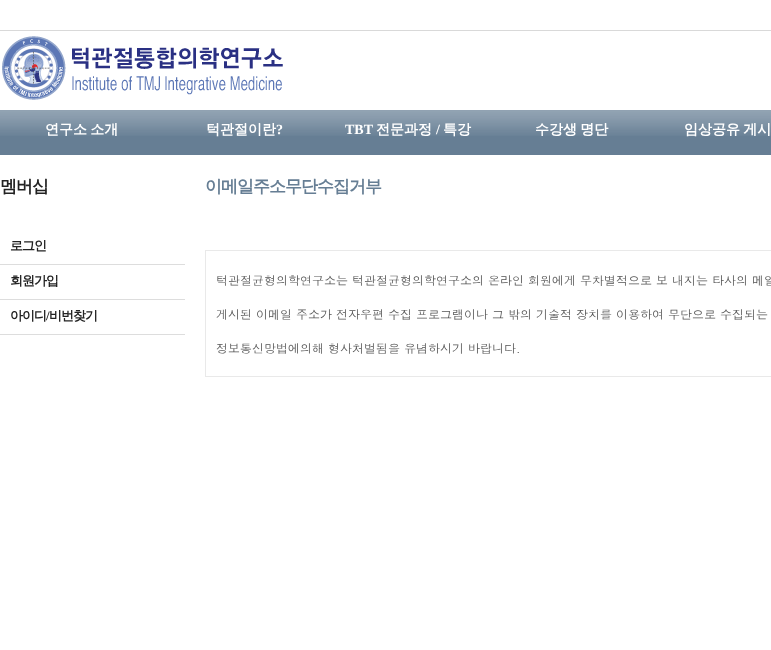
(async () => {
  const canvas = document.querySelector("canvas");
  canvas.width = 771;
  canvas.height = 650;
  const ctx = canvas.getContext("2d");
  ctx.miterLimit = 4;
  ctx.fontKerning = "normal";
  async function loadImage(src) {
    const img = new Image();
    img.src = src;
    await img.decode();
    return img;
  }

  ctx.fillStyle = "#ffffff";
  ctx.fillRect(0, 0, 771, 650);
  ctx.fillStyle = "#d9d9d9";
  ctx.fillRect(0, 30, 771, 1);
  ctx.drawImage(await loadImage("img/1.png"), 2, 36, 281, 64);
  ctx.fillStyle = "#667e94";
  ctx.fillRect(0, 110, 771, 45);
  ctx.drawImage(await loadImage("img/2.png"), 0, 110, 771, 26);
  for (const [x, y, w, h, color] of [
    [0, 264, 185, 1, "#dddddd"],
    [0, 299, 185, 1, "#dddddd"],
    [0, 334, 185, 1, "#dddddd"],
  ]) {
    ctx.fillStyle = color;
    ctx.fillRect(x, y, w, h);
  }
  ctx.strokeStyle = "#e9e9e9";
  ctx.strokeRect(205.5, 250.5, 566, 126);
  ctx.wordSpacing = "-1px";
  ctx.font = "bold 14px WenQuanYi Zen Hei";
  ctx.fillStyle = "#ffffff";
  ctx.fillText("연구소 소개", 45, 134);
  ctx.wordSpacing = "0px";
  ctx.fillText("턱관절이란", 206, 134);
  ctx.font = "bold 14px Liberation Serif";
  ctx.fillText("?", 276, 134);
  ctx.fillText("TBT", 345, 134);
  ctx.font = "bold 14px WenQuanYi Zen Hei";
  ctx.fillText("전문과정", 376, 134);
  ctx.font = "bold 14px Liberation Serif";
  ctx.fillText("/", 436, 134);
  ctx.font = "bold 14px WenQuanYi Zen Hei";
  ctx.fillText("특강", 443, 134);
  ctx.wordSpacing = "-1px";
  ctx.fillText("수강생 명단", 535, 134);
  ctx.fillText("임상공유 게시", 684, 134);
  ctx.letterSpacing = "-1px";
  ctx.wordSpacing = "0px";
  ctx.font = "bold 17px WenQuanYi Zen Hei";
  ctx.fillStyle = "#222222";
  ctx.fillText("멤버십", 0, 192);
  ctx.font = "bold 13px WenQuanYi Zen Hei";
  for (const [text, x, y] of [
    ["로그인", 10, 250],
    ["회원가입", 10, 285],
    ["아이디", 10, 320],
  ]) {
    ctx.fillText(text, x, y);
  }
  ctx.font = "bold 13px Liberation Serif";
  ctx.fillText("/", 46, 320);
  ctx.font = "bold 13px WenQuanYi Zen Hei";
  ctx.fillText("비번찾기", 49, 320);
  ctx.font = "bold 17px WenQuanYi Zen Hei";
  ctx.fillStyle = "#667e94";
  ctx.fillText("이메일주소무단수집거부", 205, 192);
  ctx.letterSpacing = "0px";
  ctx.font = "12px Dotum";
  ctx.fillStyle = "#545454";
  for (const [text, x, y] of [
    ["턱관절균형의학연구소는 턱관절균형의학연구소의 온라인 회원에게 무차별적으로 보 내지는 타사의 메일", 216, 285],
    ["게시된 이메일 주소가 전자우편 수집 프로그램이나 그 밖의 기술적 장치를 이용하여 무단으로 수집되는", 216, 319],
    ["정보통신망법에의해 형사처벌됨을 유념하시기 바랍니다.", 216, 353],
  ]) {
    ctx.fillText(text, x, y);
  }
})();
